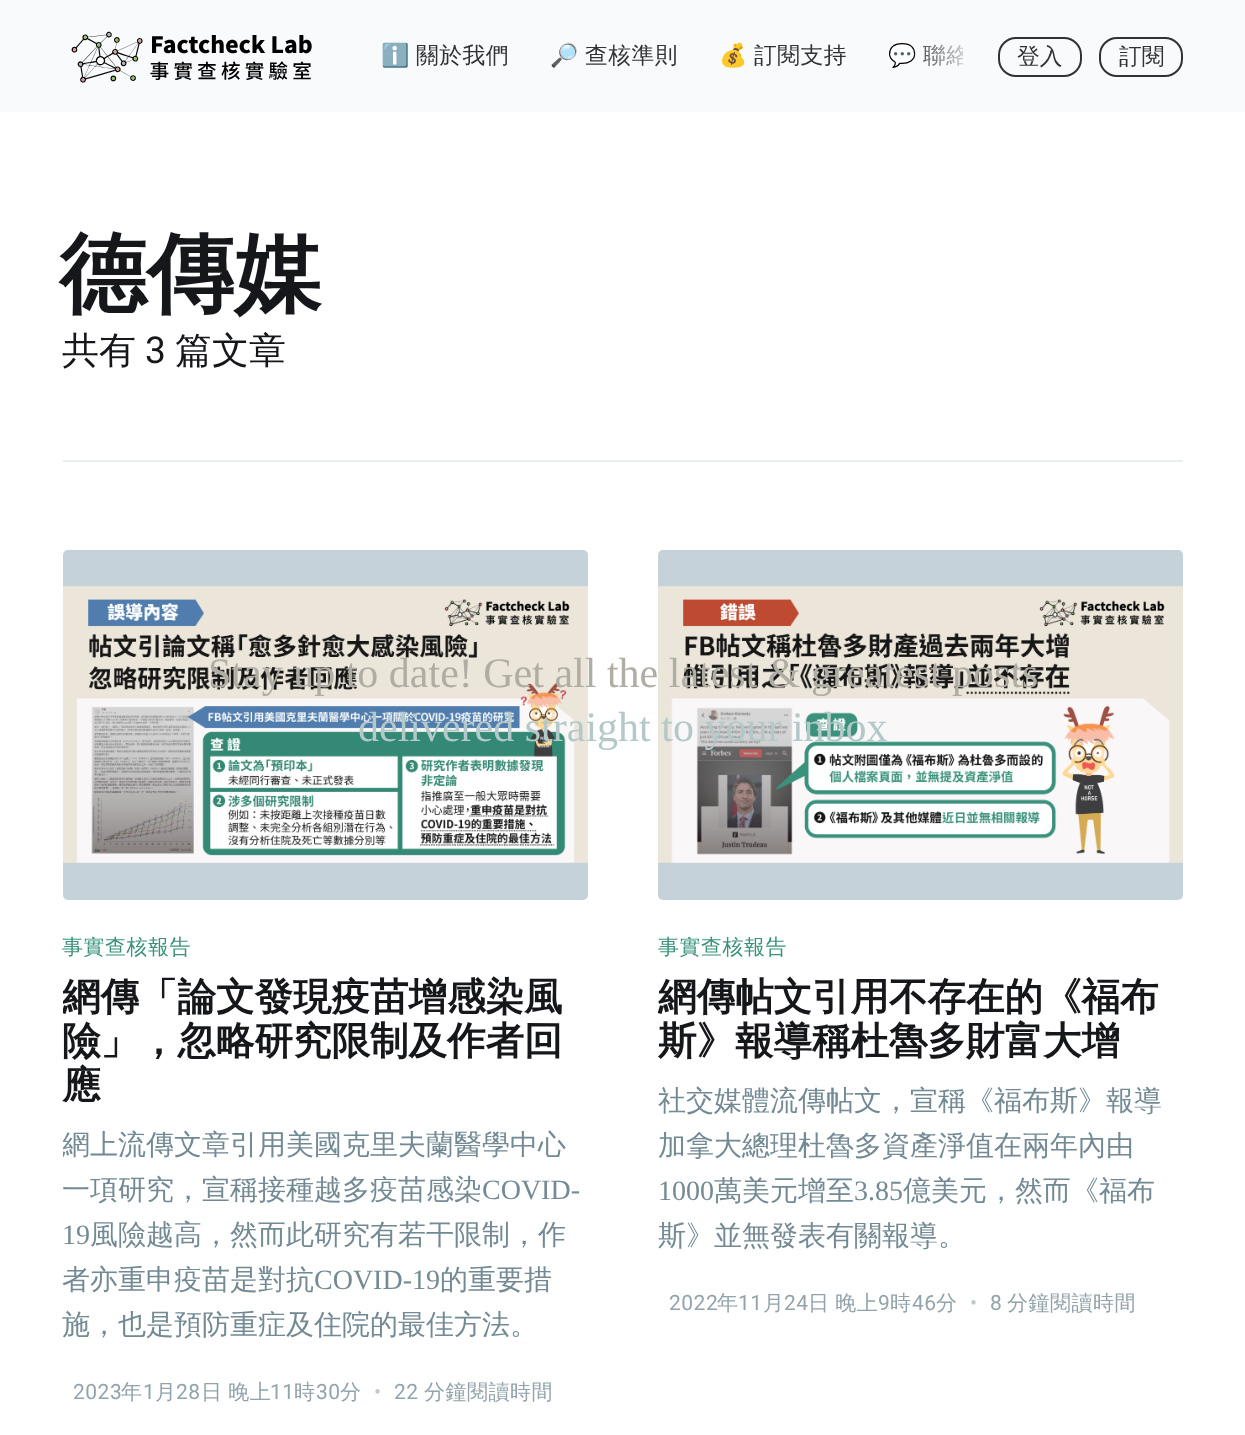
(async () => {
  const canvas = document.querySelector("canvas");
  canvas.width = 1245;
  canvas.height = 1435;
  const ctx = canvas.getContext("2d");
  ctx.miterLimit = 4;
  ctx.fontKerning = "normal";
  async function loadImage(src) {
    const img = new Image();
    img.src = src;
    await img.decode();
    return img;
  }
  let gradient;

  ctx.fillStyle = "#ffffff";
  ctx.fillRect(0, 0, 1245, 1435);
  ctx.fillStyle = "#f8fafc";
  ctx.fillRect(0, 0, 1245, 112);
  ctx.drawImage(await loadImage("img/1.png"), 71, 31, 241, 52);
  ctx.beginPath();
  ctx.roundRect(999, 38, 82, 38, 17);
  ctx.strokeStyle = "#323232";
  ctx.lineWidth = 2;
  ctx.stroke();
  ctx.beginPath();
  ctx.roundRect(1100, 38, 82, 38, 17);
  ctx.stroke();
  ctx.fillStyle = "#e9eef1";
  ctx.fillRect(63, 460, 1120, 2);
  ctx.fillStyle = "#c5d2d9";
  ctx.beginPath();
  ctx.roundRect(63, 550, 525, 350, 5);
  ctx.fill();
  ctx.drawImage(await loadImage("img/2.png"), 63, 586, 525, 277);
  ctx.beginPath();
  ctx.roundRect(658, 550, 525, 350, 5);
  ctx.fill();
  ctx.drawImage(await loadImage("img/3.png"), 658, 586, 525, 277);
  ctx.letterSpacing = "0.5px";
  ctx.font = "22.75px Noto Color Emoji";
  ctx.fillStyle = "#323232";
  ctx.fillText("ℹ️", 381, 63);
  ctx.font = "500 22.75px WenQuanYi Zen Hei";
  ctx.fillText("關於我們", 416, 63);
  ctx.font = "22.75px Noto Color Emoji";
  ctx.fillText("🔎", 550, 63);
  ctx.font = "500 22.75px WenQuanYi Zen Hei";
  ctx.fillText("查核準則", 585, 63);
  ctx.font = "22.75px Noto Color Emoji";
  ctx.fillText("💰", 719, 63);
  ctx.font = "500 22.75px WenQuanYi Zen Hei";
  ctx.fillText("訂閱支持", 754, 63);
  ctx.font = "22.75px Noto Color Emoji";
  ctx.fillText("💬", 888, 63);
  ctx.save();
  ctx.beginPath();
  ctx.rect(63, 0, 900, 112);
  ctx.clip();
  ctx.font = "500 22.75px WenQuanYi Zen Hei";
  ctx.fillText("聯絡", 923, 63);
  ctx.restore();
  gradient = ctx.createLinearGradient(910, 131, 980, 131);
  gradient.addColorStop(0, "rgba(248, 250, 252, 0)");
  gradient.addColorStop(1, "#f8fafc");
  ctx.fillStyle = gradient;
  ctx.fillRect(912, 42, 51, 26);
  ctx.letterSpacing = "0px";
  ctx.font = "500 22.75px WenQuanYi Zen Hei";
  ctx.fillStyle = "#323232";
  ctx.fillText("登入", 1017, 64);
  ctx.fillText("訂閱", 1119, 64);
  ctx.font = "bold 87.5px WenQuanYi Zen Hei";
  ctx.fillStyle = "#15171a";
  ctx.fillText("德傳媒", 59, 304);
  ctx.font = "500 37px WenQuanYi Zen Hei";
  ctx.fillText("共有", 62, 363);
  ctx.font = "37px Roboto";
  ctx.fillText("3", 145, 363);
  ctx.font = "500 37px WenQuanYi Zen Hei";
  ctx.fillText("篇文章", 175, 363);
  ctx.letterSpacing = "0.5px";
  ctx.font = "500 21px WenQuanYi Zen Hei";
  ctx.fillStyle = "#3a927c";
  ctx.fillText("事實查核報告", 62, 954);
  ctx.save();
  ctx.beginPath();
  ctx.rect(63, 550, 560, 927);
  ctx.clip();
  ctx.letterSpacing = "0px";
  ctx.font = "bold 38.5px WenQuanYi Zen Hei";
  ctx.fillStyle = "#15171a";
  ctx.fillText("網傳「論文發現疫苗增感染風", 62, 1010);
  ctx.restore();
  ctx.letterSpacing = "0px";
  ctx.font = "bold 38.5px WenQuanYi Zen Hei";
  ctx.fillStyle = "#15171a";
  ctx.fillText("險」，忽略研究限制及作者回", 62, 1054);
  ctx.fillText("應", 62, 1098);
  ctx.save();
  ctx.beginPath();
  ctx.rect(63, 550, 560, 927);
  ctx.clip();
  ctx.font = "500 28px WenQuanYi Zen Hei";
  ctx.fillStyle = "#738a94";
  ctx.fillText("網上流傳文章引用美國克里夫蘭醫學中心", 62, 1154);
  ctx.restore();
  ctx.font = "500 28px WenQuanYi Zen Hei";
  ctx.fillStyle = "#738a94";
  ctx.fillText("一項研究，宣稱接種越多疫苗感染", 62, 1199);
  ctx.font = "28px Liberation Serif";
  ctx.fillText("COVID-", 482, 1199);
  ctx.fillText("19", 62, 1244);
  ctx.font = "500 28px WenQuanYi Zen Hei";
  ctx.fillText("風險越高，然而此研究有若干限制，作", 90, 1244);
  ctx.fillText("者亦重申疫苗是對抗", 62, 1289);
  ctx.font = "28px Liberation Serif";
  ctx.fillText("COVID-19", 314, 1289);
  ctx.font = "500 28px WenQuanYi Zen Hei";
  ctx.fillText("的重要措", 440, 1289);
  ctx.fillText("施，也是預防重症及住院的最佳方法。", 62, 1334);
  ctx.letterSpacing = "0.5px";
  ctx.font = "21px Roboto";
  ctx.fillStyle = "#92a3ab";
  ctx.fillText("2023", 73, 1399);
  ctx.font = "500 21px WenQuanYi Zen Hei";
  ctx.fillText("年", 121, 1399);
  ctx.font = "21px Roboto";
  ctx.fillText("1", 143, 1399);
  ctx.font = "500 21px WenQuanYi Zen Hei";
  ctx.fillText("月", 155, 1399);
  ctx.font = "21px Roboto";
  ctx.fillText("28", 176, 1399);
  ctx.wordSpacing = "-1px";
  ctx.font = "500 21px WenQuanYi Zen Hei";
  ctx.fillText("日 晚上", 201, 1399);
  ctx.wordSpacing = "0px";
  ctx.font = "21px Roboto";
  ctx.fillText("11", 270, 1399);
  ctx.font = "500 21px WenQuanYi Zen Hei";
  ctx.fillText("時", 294, 1399);
  ctx.font = "21px Roboto";
  ctx.fillText("30", 316, 1399);
  ctx.font = "500 21px WenQuanYi Zen Hei";
  ctx.fillText("分", 340, 1399);
  ctx.font = "21px Roboto";
  ctx.fillStyle = "#bec8cd";
  ctx.fillText("•", 374, 1399);
  ctx.fillStyle = "#92a3ab";
  ctx.fillText("22", 394, 1399);
  ctx.font = "500 21px WenQuanYi Zen Hei";
  ctx.fillText("分鐘閱讀時間", 424, 1399);
  ctx.fillStyle = "#3a927c";
  ctx.fillText("事實查核報告", 658, 954);
  ctx.letterSpacing = "0px";
  ctx.font = "bold 38.5px WenQuanYi Zen Hei";
  ctx.fillStyle = "#15171a";
  ctx.fillText("網傳帖文引用不存在的《福布", 658, 1010);
  ctx.fillText("斯》報導稱杜魯多財富大增", 658, 1054);
  ctx.font = "500 28px WenQuanYi Zen Hei";
  ctx.fillStyle = "#738a94";
  ctx.fillText("社交媒體流傳帖文，宣稱《福布斯》報導", 658, 1110);
  ctx.fillText("加拿大總理杜魯多資產淨值在兩年內由", 658, 1155);
  ctx.font = "28px Liberation Serif";
  ctx.fillText("1000", 658, 1200);
  ctx.font = "500 28px WenQuanYi Zen Hei";
  ctx.fillText("萬美元增至", 714, 1200);
  ctx.font = "28px Liberation Serif";
  ctx.fillText("3.85", 854, 1200);
  ctx.font = "500 28px WenQuanYi Zen Hei";
  ctx.fillText("億美元，然而《福布", 903, 1200);
  ctx.fillText("斯》並無發表有關報導。", 658, 1245);
  ctx.letterSpacing = "0.5px";
  ctx.font = "21px Roboto";
  ctx.fillStyle = "#92a3ab";
  ctx.fillText("2022", 669, 1310);
  ctx.font = "500 21px WenQuanYi Zen Hei";
  ctx.fillText("年", 717, 1310);
  ctx.font = "21px Roboto";
  ctx.fillText("11", 738, 1310);
  ctx.font = "500 21px WenQuanYi Zen Hei";
  ctx.fillText("月", 763, 1310);
  ctx.font = "21px Roboto";
  ctx.fillText("24", 784, 1310);
  ctx.wordSpacing = "-1px";
  ctx.font = "500 21px WenQuanYi Zen Hei";
  ctx.fillText("日 晚上", 808, 1310);
  ctx.wordSpacing = "0px";
  ctx.font = "21px Roboto";
  ctx.fillText("9", 878, 1310);
  ctx.font = "500 21px WenQuanYi Zen Hei";
  ctx.fillText("時", 890, 1310);
  ctx.font = "21px Roboto";
  ctx.fillText("46", 912, 1310);
  ctx.font = "500 21px WenQuanYi Zen Hei";
  ctx.fillText("分", 936, 1310);
  ctx.font = "21px Roboto";
  ctx.fillStyle = "#bec8cd";
  ctx.fillText("•", 970, 1310);
  ctx.fillStyle = "#92a3ab";
  ctx.fillText("8", 990, 1310);
  ctx.font = "500 21px WenQuanYi Zen Hei";
  ctx.fillText("分鐘閱讀時間", 1007, 1310);
  ctx.letterSpacing = "0px";
  ctx.font = "42px Liberation Serif";
  ctx.fillStyle = "#b0ada5";
  ctx.fillText("Stay up to date! Get all the latest & greatest posts", 208, 687);
  ctx.fillStyle = "#b3c8c8";
  ctx.fillText("delivered straight to your inbox", 358, 741);
})();
